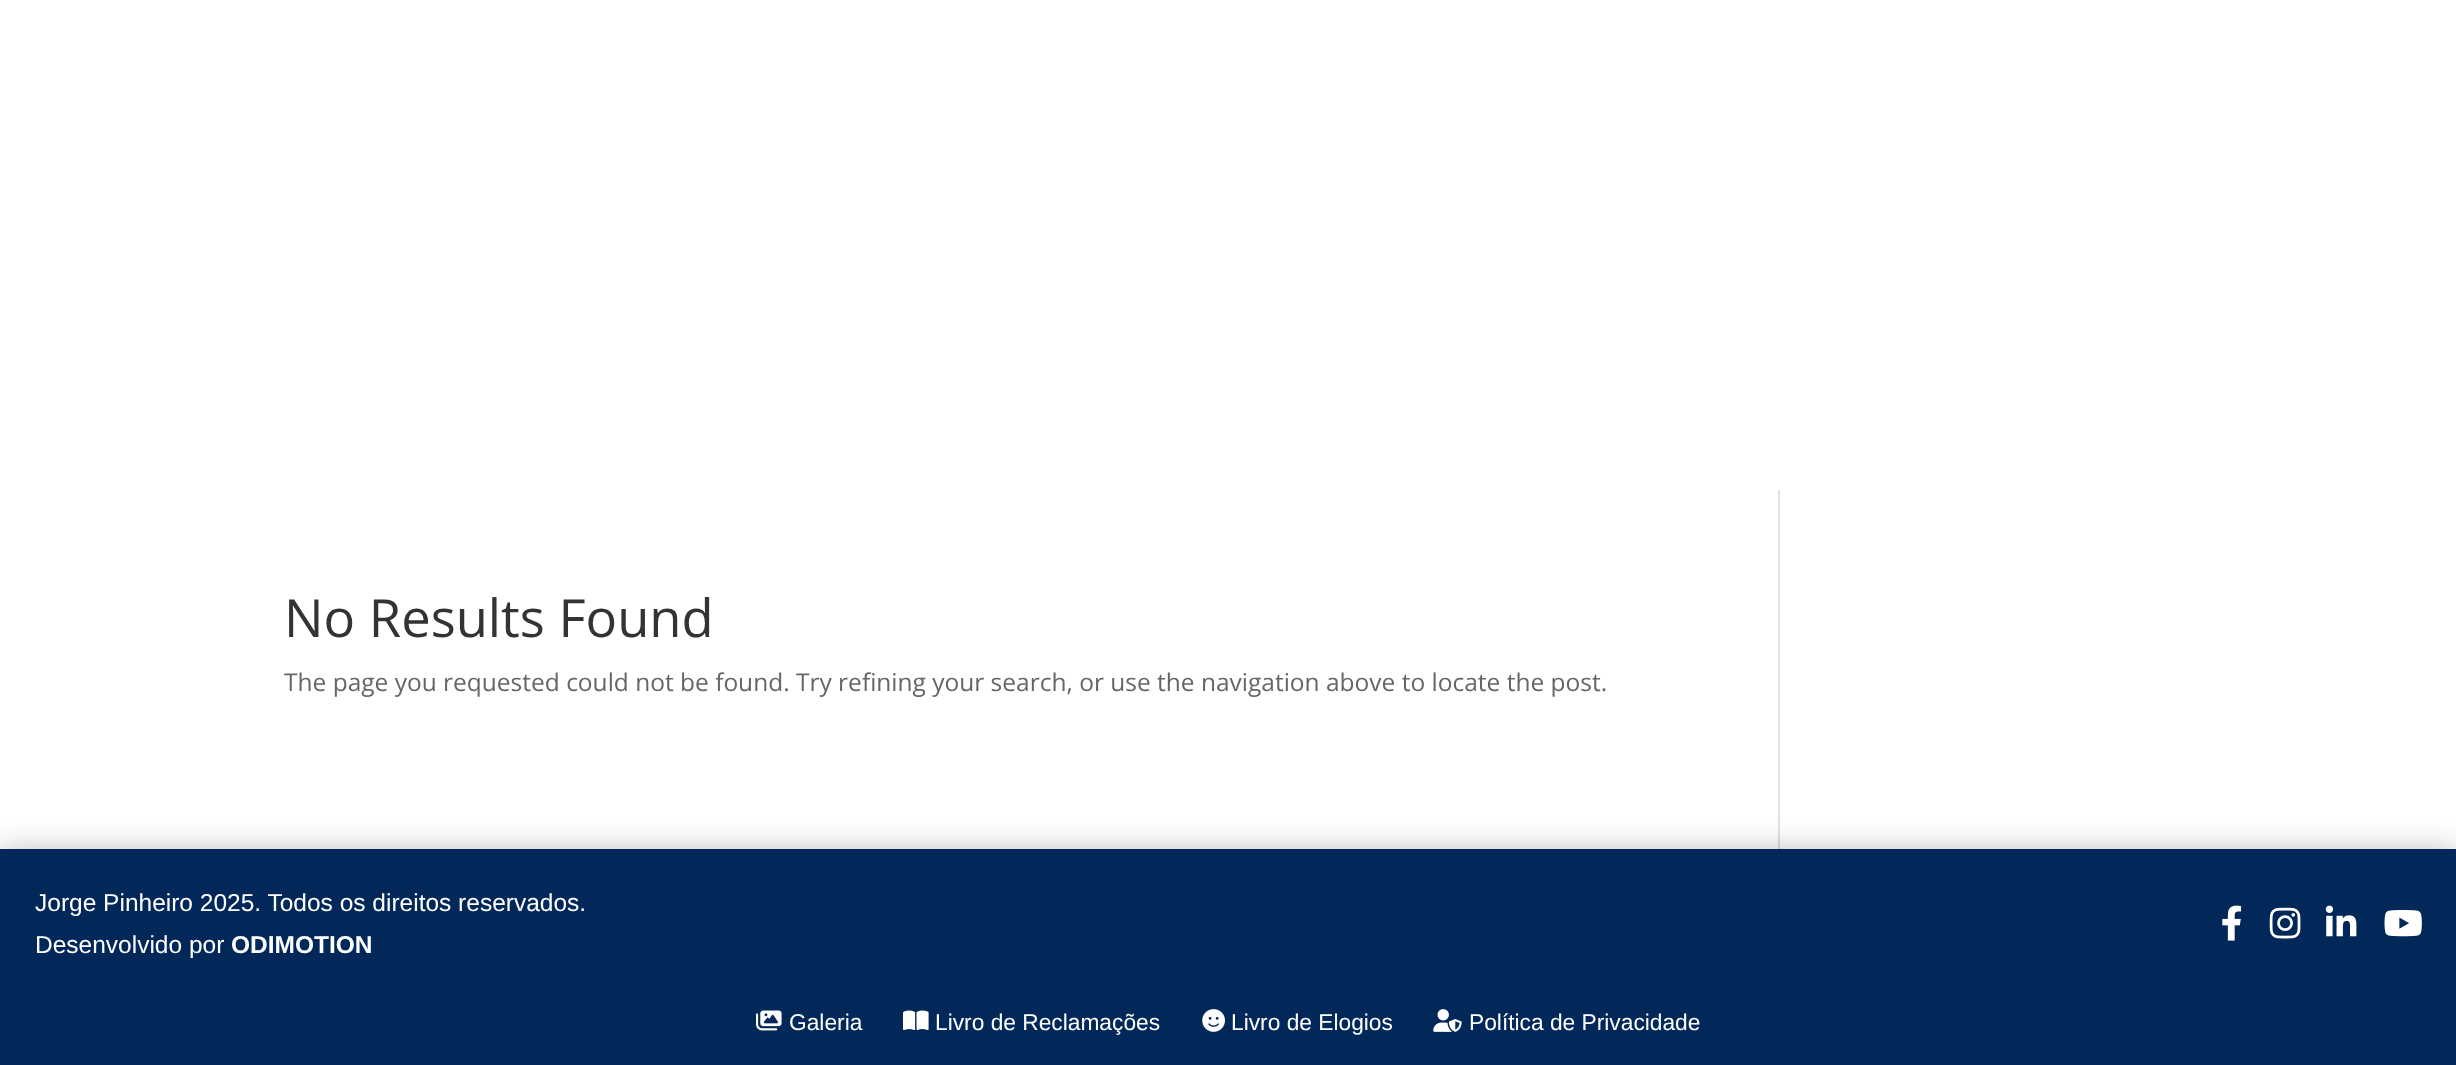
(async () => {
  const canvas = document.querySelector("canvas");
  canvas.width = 2456;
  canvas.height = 1065;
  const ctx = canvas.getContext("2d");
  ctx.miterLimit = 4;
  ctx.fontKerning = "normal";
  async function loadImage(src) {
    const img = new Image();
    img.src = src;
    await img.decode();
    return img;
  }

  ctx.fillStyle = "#ffffff";
  ctx.fillRect(0, 0, 2456, 1065);
  ctx.fillStyle = "#e2e2e2";
  ctx.fillRect(1778, 490, 2, 359);
  ctx.fillStyle = "rgba(0, 0, 0, 0.3)";
  ctx.filter = "blur(16px)";
  ctx.beginPath();
  ctx.rect(0, 852, 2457, 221);
  ctx.fill();
  ctx.filter = "none";
  ctx.fillStyle = "#022859";
  ctx.fillRect(0, 849, 2456, 216);
  ctx.drawImage(await loadImage("img/1.png"), 2222, 905, 20, 36);
  ctx.drawImage(await loadImage("img/2.png"), 2269, 907, 32, 32);
  ctx.drawImage(await loadImage("img/3.png"), 2325, 905, 32, 32);
  ctx.drawImage(await loadImage("img/4.png"), 2384, 910, 38, 27);
  ctx.drawImage(await loadImage("img/5.png"), 756, 1010, 26, 21);
  ctx.drawImage(await loadImage("img/6.png"), 903, 1010, 26, 21);
  ctx.drawImage(await loadImage("img/7.png"), 1202, 1009, 23, 23);
  ctx.drawImage(await loadImage("img/8.png"), 1433, 1009, 29, 23);
  ctx.font = "52.5px Open Sans";
  ctx.fillStyle = "#333333";
  ctx.fillText("No Results Found", 284, 637);
  ctx.font = "24.5px Open Sans";
  ctx.fillStyle = "#666666";
  ctx.fillText("The page you requested could not be found. Try refining your search, or use the navigation above to locate the post.", 284, 691);
  ctx.font = "24.5px Liberation Sans";
  ctx.fillStyle = "#ffffff";
  ctx.fillText("Jorge Pinheiro 2025. Todos os direitos reservados.", 35, 911);
  ctx.fillText("Desenvolvido por", 35, 953);
  ctx.font = "bold 24.5px Liberation Sans";
  ctx.fillText("ODIMOTION", 231, 953);
  ctx.font = "22.75px Liberation Sans";
  for (const [text, x, y] of [
    ["Galeria", 789, 1030],
    ["Livro de Reclamações", 935, 1030],
    ["Livro de Elogios", 1231, 1030],
    ["Política de Privacidade", 1469, 1030],
  ]) {
    ctx.fillText(text, x, y);
  }
})();
